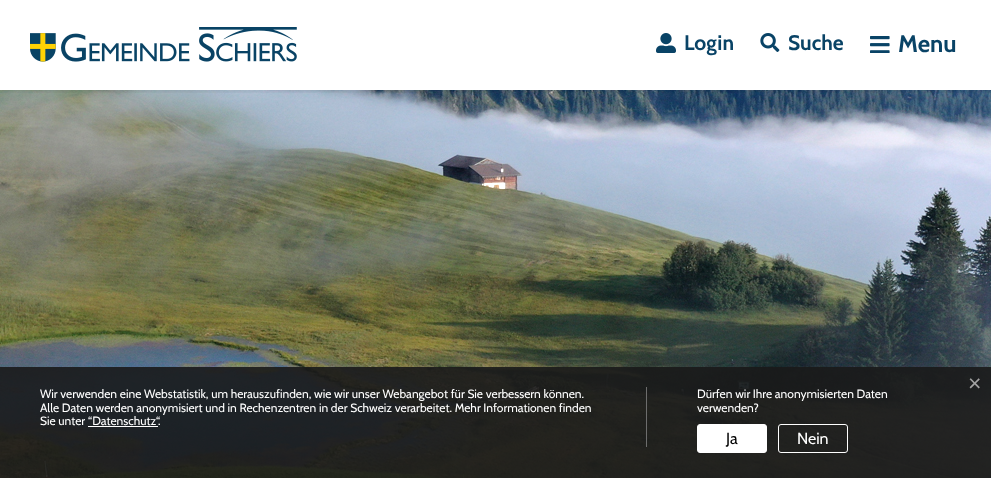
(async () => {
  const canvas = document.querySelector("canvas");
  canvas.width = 991;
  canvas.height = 478;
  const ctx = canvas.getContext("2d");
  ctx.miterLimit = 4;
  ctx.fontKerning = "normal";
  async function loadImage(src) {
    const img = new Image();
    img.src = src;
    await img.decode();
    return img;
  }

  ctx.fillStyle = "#ffffff";
  ctx.fillRect(0, 0, 991, 478);
  ctx.drawImage(await loadImage("img/5.png"), 0, 90, 991, 388);
  ctx.save();
  ctx.beginPath();
  ctx.rect(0, 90, 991, 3);
  ctx.clip();
  ctx.fillStyle = "rgba(0, 0, 0, 0.07)";
  ctx.filter = "blur(2px)";
  ctx.beginPath();
  ctx.rect(0, 2, 991, 90);
  ctx.fill();
  ctx.filter = "none";
  ctx.restore();
  ctx.drawImage(await loadImage("img/1.png"), 30, 27, 267, 35);
  ctx.drawImage(await loadImage("img/2.png"), 656, 33, 20, 20);
  ctx.drawImage(await loadImage("img/3.png"), 760, 33, 20, 19);
  ctx.drawImage(await loadImage("img/4.png"), 870, 36, 20, 17);
  for (const [x, y, w, h, color] of [
    [0, 367, 991, 111, "rgba(25, 25, 25, 0.9)"],
    [646, 387, 1, 60, "#6d6d6d"],
    [88, 426, 70, 1, "#ffffff"],
  ]) {
    ctx.fillStyle = color;
    ctx.fillRect(x, y, w, h);
  }
  ctx.beginPath();
  ctx.roundRect(697.5, 424.5, 69, 28, 2.5);
  ctx.fill();
  ctx.strokeStyle = "#ffffff";
  ctx.stroke();
  ctx.beginPath();
  ctx.roundRect(778.5, 424.5, 69, 28, 2.5);
  ctx.stroke();
  ctx.font = "bold 21px Cabin";
  ctx.fillStyle = "#094366";
  ctx.fillText("Login", 684, 50);
  ctx.fillText("Suche", 788, 50);
  ctx.font = "bold 24px Cabin";
  ctx.fillText("Menu", 898, 52);
  ctx.font = "23px Liberation Sans";
  ctx.fillStyle = "#a2a2a2";
  ctx.fillText("×", 968, 391);
  ctx.font = "12px Cabin";
  ctx.fillStyle = "#ffffff";
  for (const [text, x, y] of [
    ["Wir verwenden eine Webstatistik, um herauszufinden, wie wir unser Webangebot für Sie verbessern können.", 40, 398],
    ["Alle Daten werden anonymisiert und in Rechenzentren in der Schweiz verarbeitet. Mehr Informationen finden", 40, 412],
    ["Sie unter “Datenschutz“", 40, 425],
    [".", 158, 425],
    ["Dürfen wir Ihre anonymisierten Daten", 697, 398],
    ["verwenden?", 697, 412],
  ]) {
    ctx.fillText(text, x, y);
  }
  ctx.font = "16px Cabin";
  ctx.fillStyle = "#000000";
  ctx.fillText("Ja", 726, 444);
  ctx.fillStyle = "#ffffff";
  ctx.fillText("Nein", 797, 444);
})();
